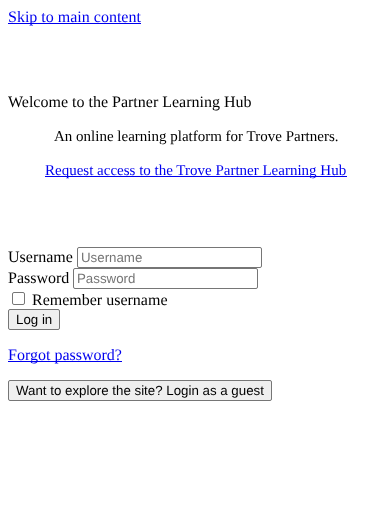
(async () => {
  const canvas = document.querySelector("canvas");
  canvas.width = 392;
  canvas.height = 520;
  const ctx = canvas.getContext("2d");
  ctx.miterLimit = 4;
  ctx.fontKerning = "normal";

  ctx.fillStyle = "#ffffff";
  ctx.fillRect(0, 0, 392, 520);
  ctx.fillStyle = "#0000ee";
  ctx.fillRect(8, 23, 133, 1);
  ctx.fillRect(45, 176, 302, 1);
  ctx.beginPath();
  ctx.roundRect(77.5, 247.5, 184, 20, 1.5);
  ctx.strokeStyle = "#767676";
  ctx.stroke();
  ctx.beginPath();
  ctx.roundRect(73.5, 268.5, 184, 20, 1.5);
  ctx.stroke();
  ctx.beginPath();
  ctx.roundRect(12.5, 292.5, 12, 12, 1.5);
  ctx.stroke();
  ctx.fillStyle = "#efefef";
  ctx.beginPath();
  ctx.roundRect(8.5, 309.5, 51, 20, 1.5);
  ctx.fill();
  ctx.stroke();
  ctx.fillStyle = "#0000ee";
  ctx.fillRect(8, 361, 114, 1);
  ctx.fillStyle = "#efefef";
  ctx.beginPath();
  ctx.roundRect(8.5, 380.5, 263, 20, 1.5);
  ctx.fill();
  ctx.stroke();
  ctx.font = "16px Liberation Serif";
  ctx.fillStyle = "#0000ee";
  ctx.fillText("Skip to main content", 8, 22);
  ctx.fillStyle = "#000000";
  ctx.fillText("Welcome to the Partner Learning Hub", 8, 107);
  ctx.font = "15px Liberation Serif";
  ctx.fillText("An online learning platform for Trove Partners.", 54, 141);
  ctx.fillStyle = "#0000ee";
  ctx.fillText("Request access to the Trove Partner Learning Hub", 45, 175);
  ctx.font = "16px Liberation Serif";
  ctx.fillStyle = "#000000";
  ctx.fillText("Username", 8, 262);
  ctx.font = "13.3px Liberation Sans";
  ctx.fillStyle = "#757575";
  ctx.fillText("Username", 81, 262);
  ctx.font = "16px Liberation Serif";
  ctx.fillStyle = "#000000";
  ctx.fillText("Password", 8, 283);
  ctx.font = "13.3px Liberation Sans";
  ctx.fillStyle = "#757575";
  ctx.fillText("Password", 77, 283);
  ctx.font = "16px Liberation Serif";
  ctx.fillStyle = "#000000";
  ctx.fillText("Remember username", 32, 305);
  ctx.font = "13.3px Liberation Sans";
  ctx.fillText("Log in", 16, 324);
  ctx.font = "16px Liberation Serif";
  ctx.fillStyle = "#0000ee";
  ctx.fillText("Forgot password?", 8, 360);
  ctx.font = "13.3px Liberation Sans";
  ctx.fillStyle = "#000000";
  ctx.fillText("Want to explore the site? Login as a guest", 16, 395);
})();
